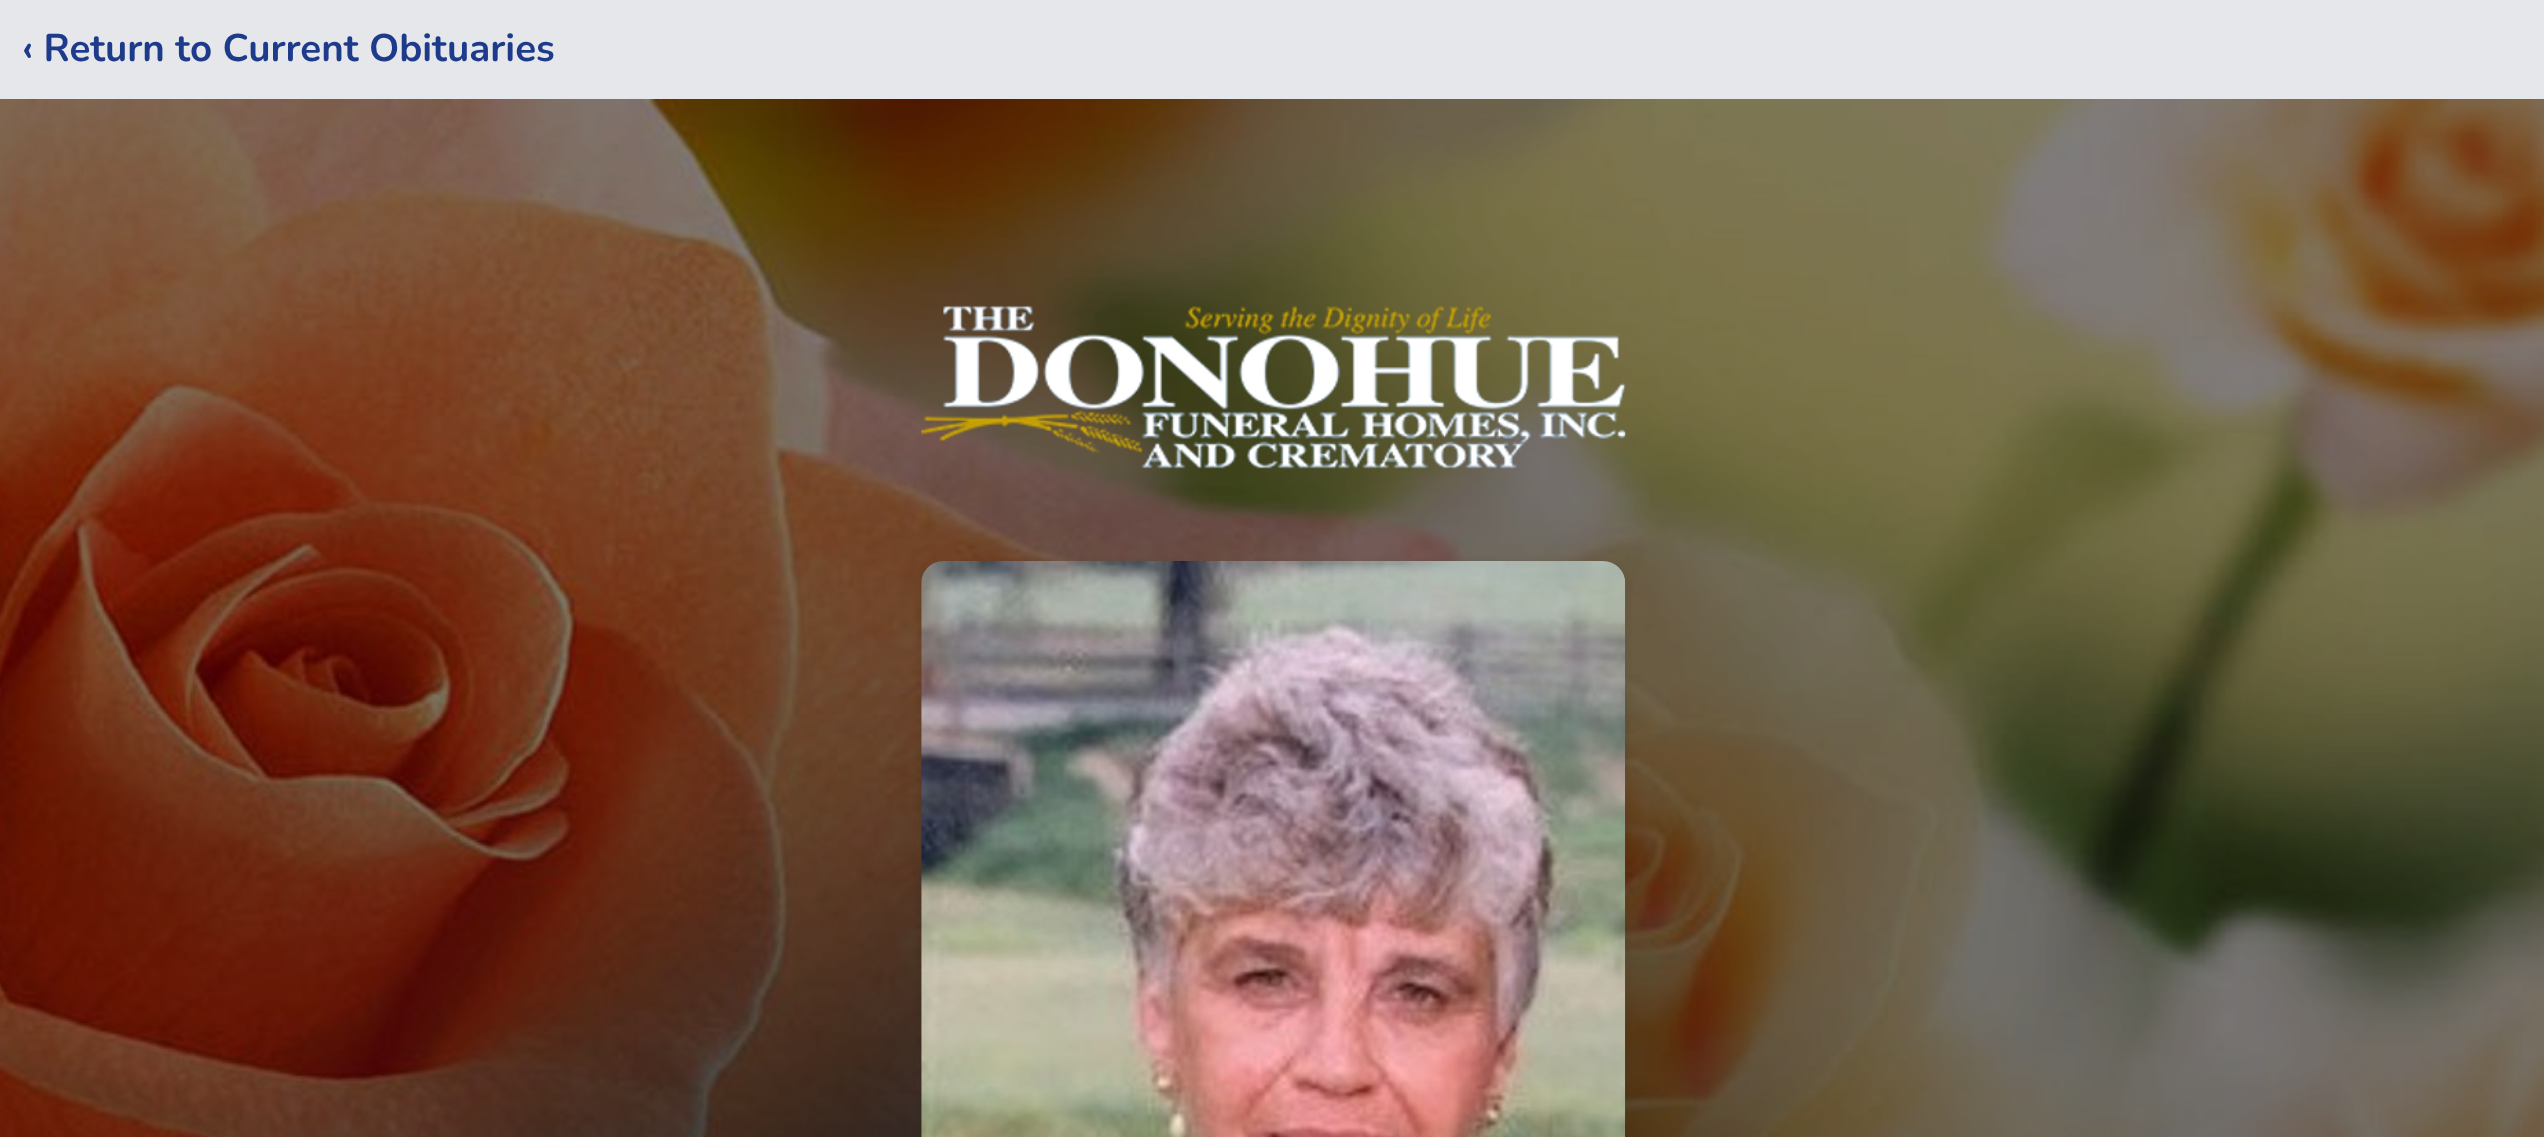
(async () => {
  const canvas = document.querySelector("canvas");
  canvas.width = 2544;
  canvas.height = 1137;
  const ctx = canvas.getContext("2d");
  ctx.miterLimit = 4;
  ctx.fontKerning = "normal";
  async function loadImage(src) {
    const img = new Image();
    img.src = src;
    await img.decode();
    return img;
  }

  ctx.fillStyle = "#e5e7eb";
  ctx.fillRect(0, 0, 2544, 1137);
  ctx.drawImage(await loadImage("img/1.png"), 0, 99, 2544, 1038);
  ctx.drawImage(await loadImage("img/2.png"), 921, 305, 705, 164);
  ctx.fillStyle = "rgba(0, 0, 0, 0.1)";
  ctx.filter = "blur(4px)";
  ctx.beginPath();
  ctx.roundRect(921, 564, 704, 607, 22);
  ctx.fill();
  ctx.filter = "none";
  ctx.drawImage(await loadImage("img/3.png"), 921, 561, 705, 576);
  ctx.font = "bold 38.5px Nunito";
  ctx.fillStyle = "#1e3a8a";
  ctx.fillText("‹ Return to Current Obituaries", 22, 61);
})();
